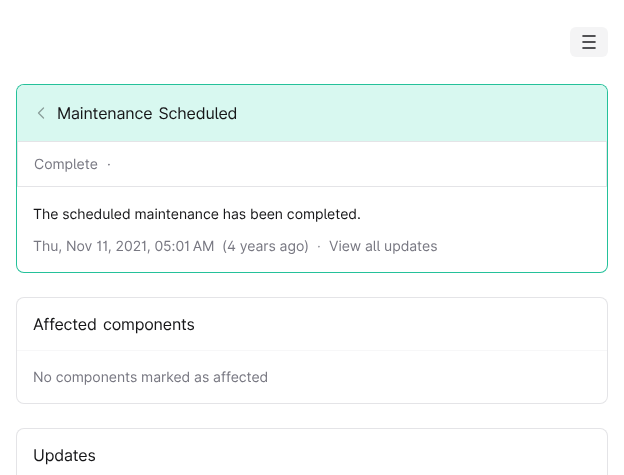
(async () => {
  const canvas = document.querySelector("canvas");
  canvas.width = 624;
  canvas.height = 475;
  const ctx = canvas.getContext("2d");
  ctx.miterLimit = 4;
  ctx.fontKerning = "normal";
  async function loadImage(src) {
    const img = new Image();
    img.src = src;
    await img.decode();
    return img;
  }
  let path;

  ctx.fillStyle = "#ffffff";
  ctx.fillRect(0, 0, 624, 475);
  ctx.fillStyle = "#f4f4f5";
  ctx.beginPath();
  ctx.roundRect(570, 27, 38, 30, 6);
  ctx.fill();
  ctx.drawImage(await loadImage("img/1.png"), 582, 35, 14, 14);
  ctx.fillStyle = "#24c19a";
  ctx.beginPath();
  ctx.roundRect(16, 84, 592, 189, 8);
  ctx.fill();
  ctx.fillStyle = "#ffffff";
  ctx.beginPath();
  ctx.roundRect(17, 85, 590, 187, 7);
  ctx.fill();
  ctx.fillStyle = "#d8f8f0";
  ctx.beginPath();
  ctx.roundRect(17, 85, 590, 56, [7, 7, 0, 0]);
  ctx.fill();
  path = new Path2D("M43.5 118L38.5 113L43.5 108");
  ctx.strokeStyle = "#8a9e9a";
  ctx.lineWidth = 1.3;
  ctx.lineCap = "round";
  ctx.lineJoin = "round";
  ctx.stroke(path);
  ctx.strokeStyle = "#e4e4e7";
  ctx.lineWidth = 1;
  ctx.lineJoin = "miter";
  ctx.strokeRect(17.5, 141.5, 589, 45);
  ctx.fillStyle = "#e4e4e7";
  ctx.beginPath();
  ctx.roundRect(16, 297, 592, 107, 8);
  ctx.fill();
  ctx.fillStyle = "#ffffff";
  ctx.beginPath();
  ctx.roundRect(17, 298, 590, 105, 7);
  ctx.fill();
  ctx.fillStyle = "#f7f7f8";
  ctx.fillRect(17, 350, 590, 1);
  ctx.fillStyle = "#e4e4e7";
  ctx.beginPath();
  ctx.roundRect(16, 428, 592, 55, 8);
  ctx.fill();
  ctx.fillStyle = "#ffffff";
  ctx.beginPath();
  ctx.roundRect(17, 429, 590, 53, 7);
  ctx.fill();
  ctx.letterSpacing = "-0.2px";
  ctx.wordSpacing = "2px";
  ctx.font = "16px Inter";
  ctx.fillStyle = "#161618";
  ctx.fillText("Maintenance Scheduled", 57, 119);
  ctx.letterSpacing = "-0.05px";
  ctx.wordSpacing = "0px";
  ctx.font = "14px Inter";
  ctx.fillStyle = "#787882";
  ctx.fillText("Complete", 34, 169);
  ctx.fillText("·", 107, 169);
  ctx.fillStyle = "#161618";
  ctx.fillText("The scheduled maintenance has been completed.", 33, 219);
  ctx.fillStyle = "#787882";
  ctx.fillText("Thu, Nov 11, 2021, 05:01 AM", 33, 251);
  ctx.fillText("(4 years ago)", 222, 251);
  ctx.fillStyle = "#95959d";
  ctx.fillText("·", 317, 251);
  ctx.fillStyle = "#787882";
  ctx.fillText("View all updates", 329, 251);
  ctx.letterSpacing = "-0.2px";
  ctx.wordSpacing = "2px";
  ctx.font = "16px Inter";
  ctx.fillStyle = "#161618";
  ctx.fillText("Affected components", 33, 330);
  ctx.letterSpacing = "-0.05px";
  ctx.wordSpacing = "0px";
  ctx.font = "14px Inter";
  ctx.fillStyle = "#787882";
  ctx.fillText("No components marked as affected", 33, 382);
  ctx.letterSpacing = "-0.2px";
  ctx.font = "16px Inter";
  ctx.fillStyle = "#161618";
  ctx.fillText("Updates", 33, 461);
})();
